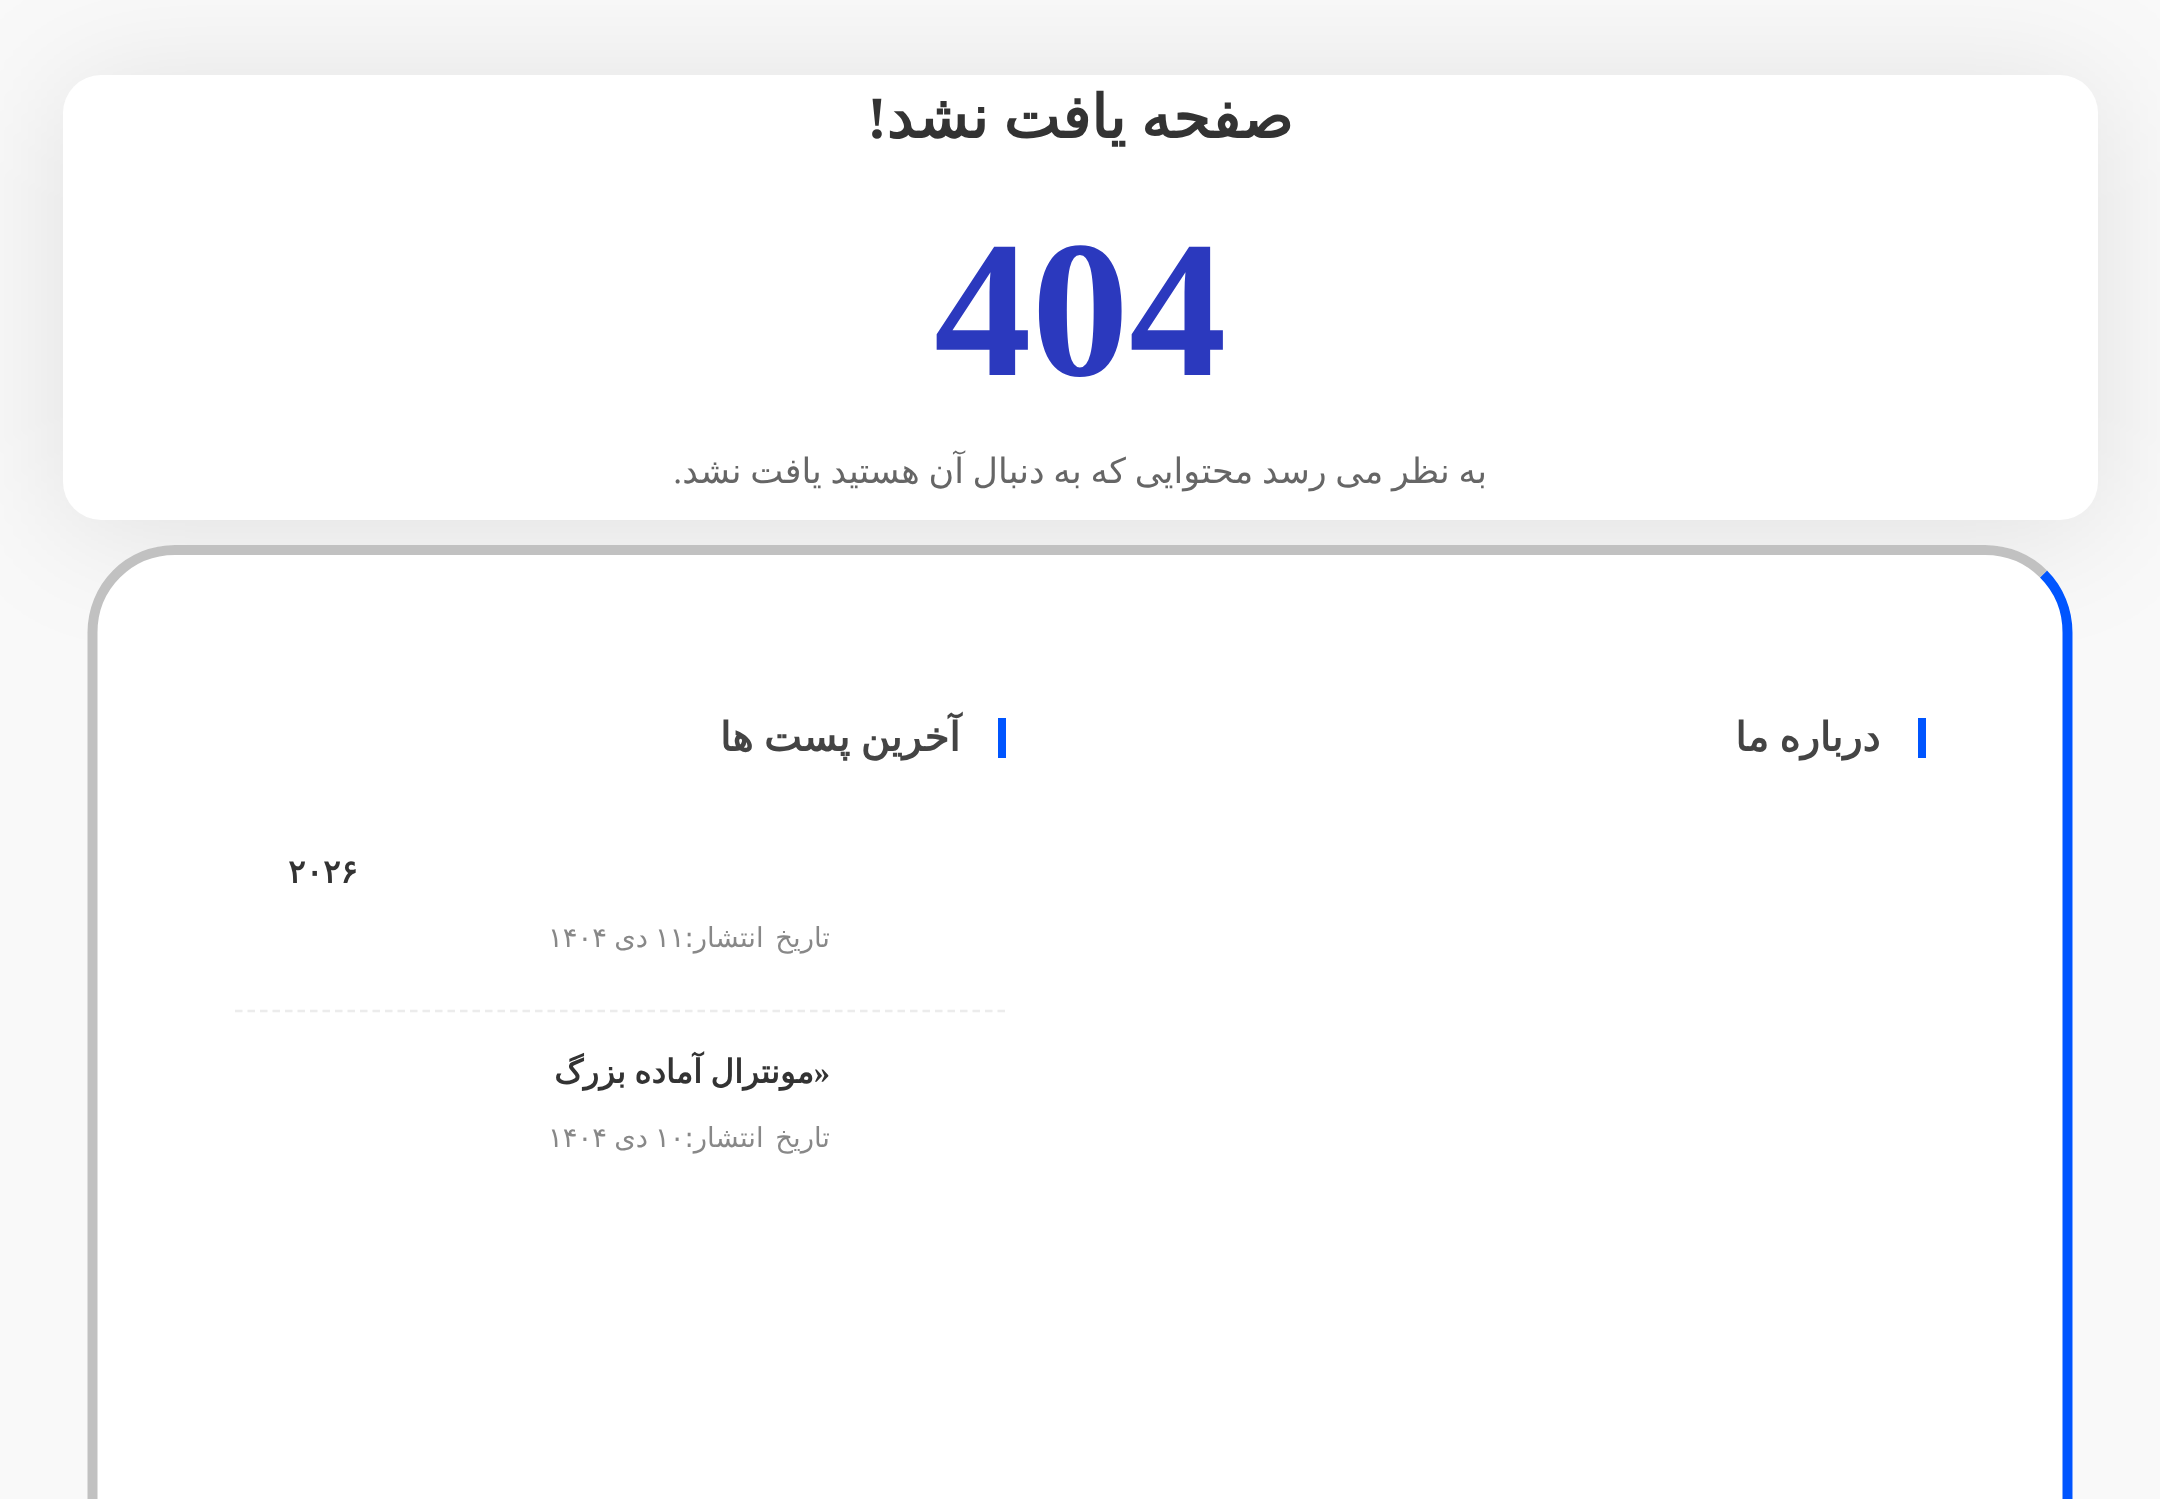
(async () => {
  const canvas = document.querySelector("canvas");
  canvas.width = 2160;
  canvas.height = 1499;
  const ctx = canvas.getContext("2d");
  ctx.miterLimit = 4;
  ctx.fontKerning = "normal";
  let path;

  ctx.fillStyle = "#f9f9f9";
  ctx.fillRect(0, 0, 2160, 1499);
  ctx.fillStyle = "rgba(0, 0, 0, 0.1)";
  ctx.filter = "blur(64px)";
  ctx.beginPath();
  ctx.roundRect(63, 85, 2035, 445, 38);
  ctx.fill();
  ctx.filter = "none";
  ctx.fillStyle = "#ffffff";
  ctx.beginPath();
  ctx.roundRect(63, 75, 2035, 445, 38);
  ctx.fill();
  ctx.beginPath();
  ctx.roundRect(88, 545, 1985, 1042, 88);
  ctx.fill();
  path = new Path2D("M2043.5 574C2059 589.5 2067.5 610.5 2067.5 632.5V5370C2067.5 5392 2059 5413 2043.5 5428.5C2028 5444 2007 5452.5 1985 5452.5H175C153 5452.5 132 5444 116.5 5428.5");
  ctx.strokeStyle = "#0055ff";
  ctx.lineWidth = 10;
  ctx.stroke(path);
  path = new Path2D("M116.5 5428.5C101 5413 92.5 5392 92.5 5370V632.5C92.5 610.5 101 589.5 116.5 574C132 558.5 153 550 175 550H1985C2007 550 2028 558.5 2043.5 574");
  ctx.strokeStyle = "#c1c1c1";
  ctx.stroke(path);
  ctx.fillStyle = "#0055ff";
  ctx.fillRect(1918, 718, 8, 40);
  ctx.fillRect(998, 718, 8, 40);
  path = new Path2D("M235 1011H1005");
  ctx.strokeStyle = "#ececec";
  ctx.lineWidth = 2.5;
  ctx.setLineDash([7.5, 5]);
  ctx.stroke(path);
  ctx.wordSpacing = "-4px";
  ctx.direction = "rtl";
  ctx.font = "bold 60px DejaVu Sans";
  ctx.fillStyle = "#333333";
  ctx.fillText("صفحه یافت نشد", 1293, 138);
  ctx.wordSpacing = "0px";
  ctx.font = "bold 60px Liberation Serif";
  ctx.fillText("!", 887, 138);
  ctx.direction = "ltr";
  ctx.font = "bold 195px Liberation Serif";
  ctx.fillStyle = "#2b39be";
  ctx.fillText("404", 934, 375);
  ctx.wordSpacing = "-2.4px";
  ctx.direction = "rtl";
  ctx.font = "35px DejaVu Sans";
  ctx.fillStyle = "#666666";
  ctx.fillText("به نظر می رسد محتوایی که به دنبال آن هستید یافت نشد", 1487, 483);
  ctx.wordSpacing = "0px";
  ctx.font = "35px Liberation Serif";
  ctx.fillText(".", 682, 483);
  ctx.wordSpacing = "-2px";
  ctx.font = "bold 40px DejaVu Sans";
  ctx.fillStyle = "#444444";
  ctx.fillText("درباره ما", 1880, 751);
  ctx.fillText("آخرین پست ها", 960, 751);
  ctx.wordSpacing = "0px";
  ctx.direction = "ltr";
  ctx.font = "bold 32.5px DejaVu Sans";
  ctx.fillStyle = "#333333";
  ctx.fillText("۲۰۲۶", 288, 883);
  ctx.wordSpacing = "3px";
  ctx.direction = "rtl";
  ctx.font = "27.5px DejaVu Sans";
  ctx.fillStyle = "#888888";
  ctx.fillText("تاریخ انتشار:", 830, 947);
  ctx.wordSpacing = "0px";
  ctx.direction = "ltr";
  ctx.fillText("۱۱", 655, 947);
  ctx.direction = "rtl";
  ctx.fillText("دی", 648, 947);
  ctx.direction = "ltr";
  ctx.fillText("۱۴۰۴", 548, 947);
  ctx.direction = "rtl";
  ctx.font = "bold 32.5px Liberation Serif";
  ctx.fillStyle = "#333333";
  ctx.fillText("«", 830, 1083);
  ctx.wordSpacing = "-2px";
  ctx.font = "bold 32.5px DejaVu Sans";
  ctx.fillText("مونترال آماده بزرگ", 814, 1083);
  ctx.wordSpacing = "3px";
  ctx.font = "27.5px DejaVu Sans";
  ctx.fillStyle = "#888888";
  ctx.fillText("تاریخ انتشار:", 830, 1147);
  ctx.wordSpacing = "0px";
  ctx.direction = "ltr";
  ctx.fillText("۱۰", 655, 1147);
  ctx.direction = "rtl";
  ctx.fillText("دی", 648, 1147);
  ctx.direction = "ltr";
  ctx.fillText("۱۴۰۴", 548, 1147);
})();
